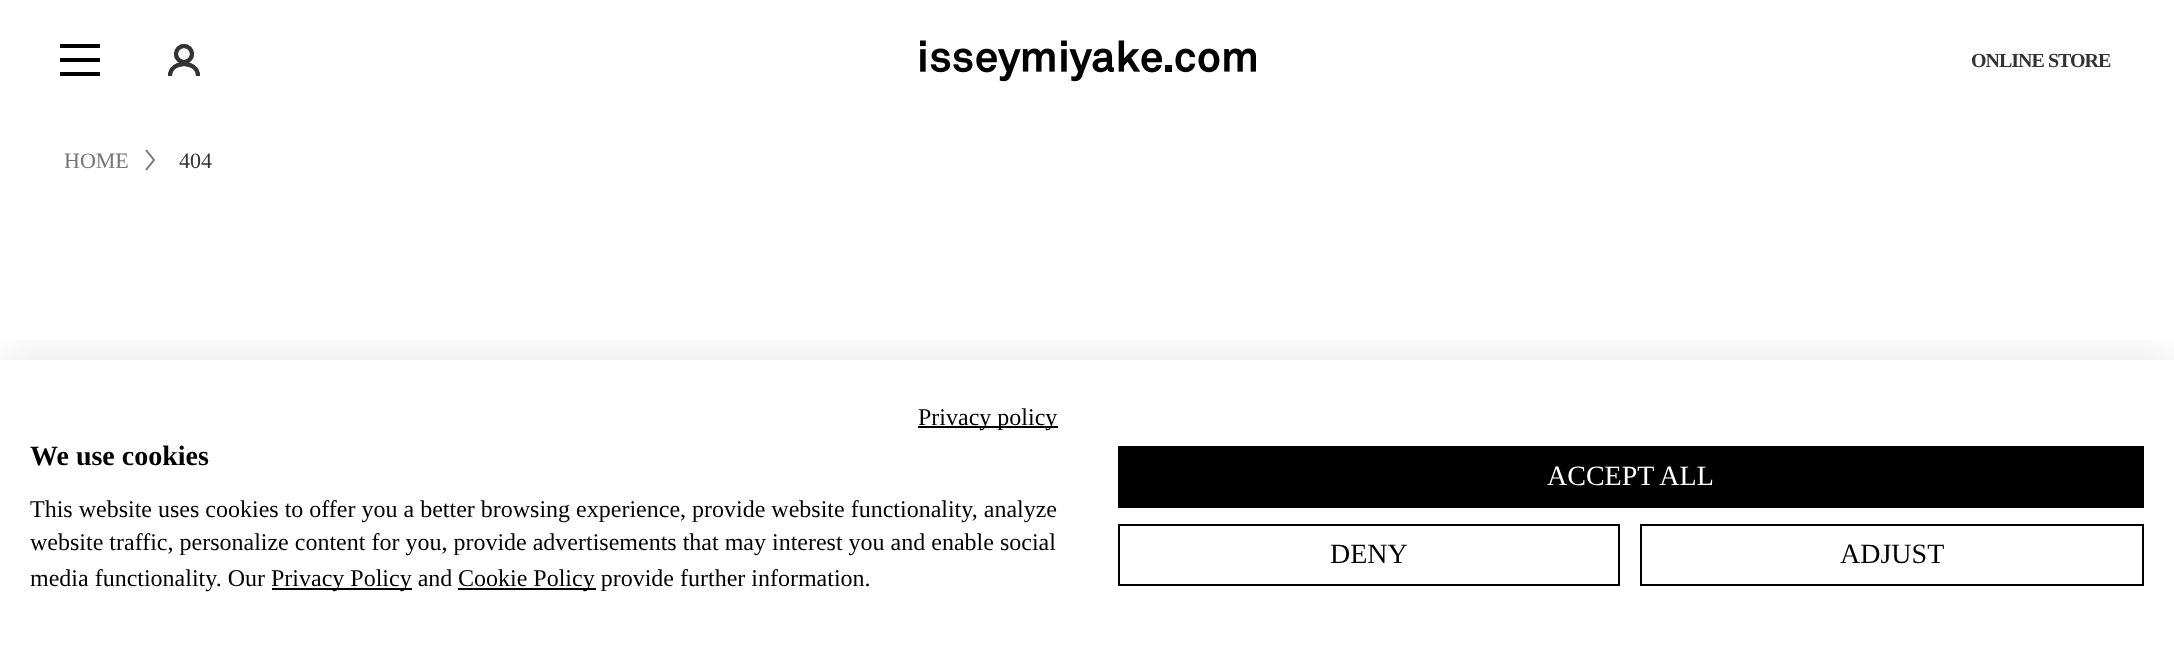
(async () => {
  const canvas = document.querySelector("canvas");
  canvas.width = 2174;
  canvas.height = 650;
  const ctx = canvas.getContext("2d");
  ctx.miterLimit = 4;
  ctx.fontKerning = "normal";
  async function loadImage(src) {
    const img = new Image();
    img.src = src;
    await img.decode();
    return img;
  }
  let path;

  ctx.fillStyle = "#ffffff";
  ctx.fillRect(0, 0, 2174, 650);
  for (const [x, y, w, h, color] of [
    [60, 44, 40, 4, "#000000"],
    [60, 58, 40, 4, "#000000"],
    [60, 72, 40, 4, "#000000"],
  ]) {
    ctx.fillStyle = color;
    ctx.fillRect(x, y, w, h);
  }
  ctx.beginPath();
  ctx.arc(184, 54, 8, 0, Math.PI * 2);
  ctx.strokeStyle = "#333333";
  ctx.lineWidth = 4;
  ctx.stroke();
  path = new Path2D("M198 76C198 60 170 60 170 76");
  ctx.stroke(path);
  ctx.drawImage(await loadImage("img/1.png"), 920, 40, 336, 42);
  ctx.beginPath();
  ctx.arc(184, 54, 8, 0, Math.PI * 2);
  ctx.stroke();
  path = new Path2D("M198 76C198 60 170 60 170 76");
  ctx.stroke(path);
  path = new Path2D("M146 150L154 160L146 170");
  ctx.strokeStyle = "#767676";
  ctx.lineWidth = 2;
  ctx.stroke(path);
  ctx.save();
  ctx.beginPath();
  ctx.rect(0, 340, 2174, 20);
  ctx.clip();
  ctx.fillStyle = "rgba(0, 0, 0, 0.1)";
  ctx.filter = "blur(24px)";
  ctx.beginPath();
  ctx.rect(0, 360, 2174, 290);
  ctx.fill();
  ctx.filter = "none";
  ctx.restore();
  for (const [x, y, w, h, color] of [
    [918, 426, 140, 2, "#000000"],
    [272, 588, 140, 2, "#000000"],
    [458, 588, 138, 2, "#000000"],
    [1118, 446, 1026, 62, "#000000"],
  ]) {
    ctx.fillStyle = color;
    ctx.fillRect(x, y, w, h);
  }
  ctx.strokeStyle = "#000000";
  ctx.strokeRect(1119, 525, 500, 60);
  ctx.strokeRect(1641, 525, 502, 60);
  ctx.letterSpacing = "-1px";
  ctx.font = "bold 20px Liberation Serif";
  ctx.fillStyle = "#333333";
  ctx.fillText("ONLINE STORE", 1971, 67);
  ctx.letterSpacing = "0px";
  ctx.font = "22px Liberation Serif";
  ctx.fillStyle = "#767676";
  ctx.fillText("HOME", 64, 168);
  ctx.fillStyle = "#333333";
  ctx.fillText("404", 179, 168);
  ctx.font = "24px Liberation Serif";
  ctx.fillStyle = "#000000";
  ctx.fillText("Privacy policy", 918, 425);
  ctx.font = "bold 28px Liberation Serif";
  ctx.fillText("We use cookies", 30, 465);
  ctx.font = "24px Liberation Serif";
  for (const [text, x, y] of [
    ["This website uses cookies to offer you a better browsing experience, provide website functionality, analyze", 30, 517],
    ["website traffic, personalize content for you, provide advertisements that may interest you and enable social", 30, 550],
    ["media functionality. Our", 30, 586],
    ["Privacy Policy and", 271, 586],
    ["Cookie Policy provide further information.", 458, 586],
  ]) {
    ctx.fillText(text, x, y);
  }
  ctx.font = "28px Liberation Serif";
  ctx.fillStyle = "#ffffff";
  ctx.fillText("ACCEPT ALL", 1547, 485);
  ctx.fillStyle = "#000000";
  ctx.fillText("DENY", 1330, 563);
  ctx.fillText("ADJUST", 1840, 563);
})();
